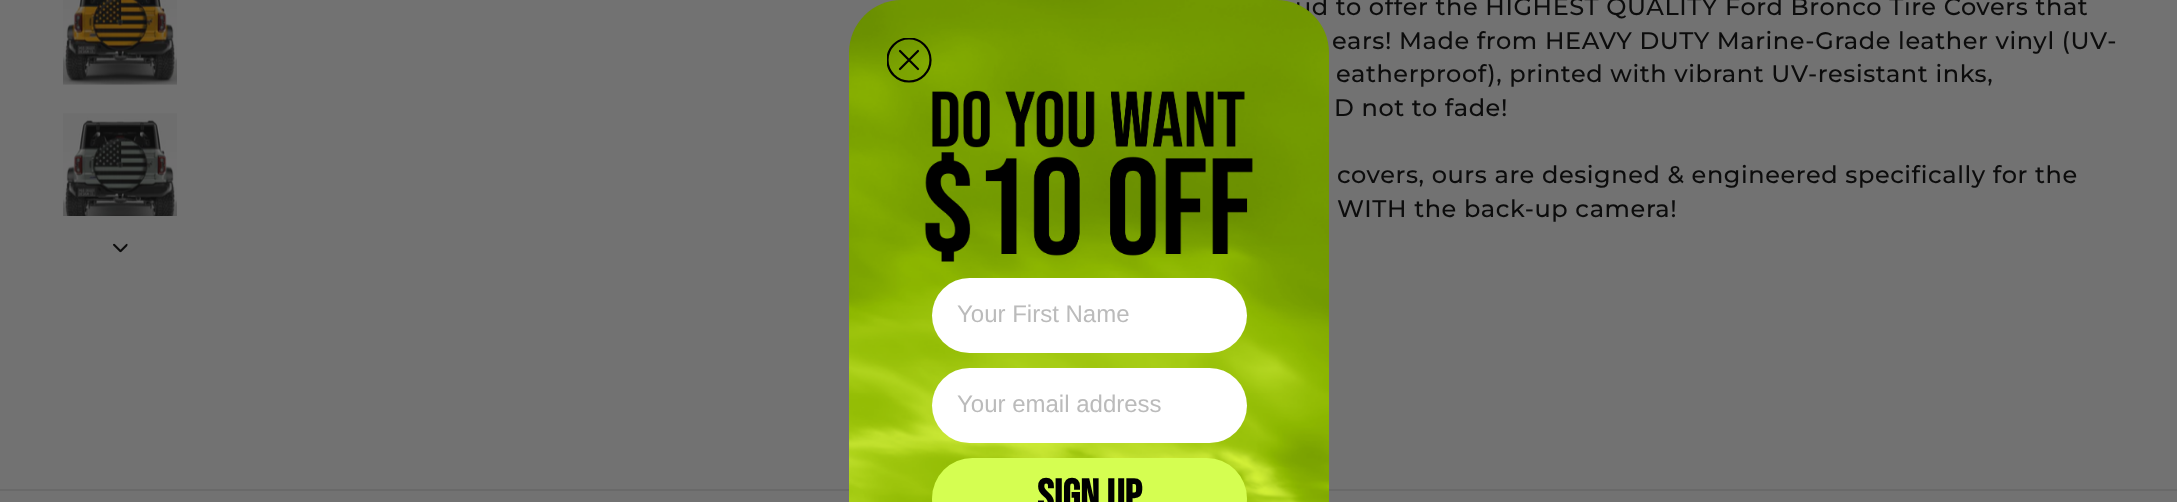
(async () => {
  const canvas = document.querySelector("canvas");
  canvas.width = 2177;
  canvas.height = 502;
  const ctx = canvas.getContext("2d");
  ctx.miterLimit = 4;
  ctx.fontKerning = "normal";
  async function loadImage(src) {
    const img = new Image();
    img.src = src;
    await img.decode();
    return img;
  }
  let path;

  ctx.fillStyle = "#727272";
  ctx.fillRect(0, 0, 2177, 502);
  ctx.drawImage(await loadImage("img/1.png"), 63, 0, 114, 85);
  ctx.drawImage(await loadImage("img/2.png"), 63, 113, 114, 103);
  ctx.drawImage(await loadImage("img/3.png"), 113, 243, 15, 10);
  ctx.fillStyle = "#696969";
  ctx.fillRect(0, 489, 2177, 2);
  ctx.letterSpacing = "0.6px";
  ctx.font = "500 24px Montserrat";
  ctx.fillStyle = "#0c0c0c";
  for (const [text, x, y] of [
    ["ud to offer the HIGHEST QUALITY Ford Bronco Tire Covers that", 1295, 15],
    ["ears! Made from HEAVY DUTY Marine-Grade leather vinyl (UV-", 1332, 49],
    ["eatherproof), printed with vibrant UV-resistant inks,", 1336, 82],
    ["D not to fade!", 1334, 116],
    ["covers, ours are designed & engineered specifically for the", 1337, 183],
    ["WITH the back-up camera!", 1337, 217],
  ]) {
    ctx.fillText(text, x, y);
  }
  ctx.drawImage(await loadImage("img/4.png"), 849, 0, 480, 502);
  ctx.save();
  ctx.beginPath();
  ctx.rect(887, 38, 45, 45);
  ctx.clip();
  ctx.beginPath();
  ctx.arc(909, 60, 21.5, 0, Math.PI * 2);
  ctx.strokeStyle = "#000000";
  ctx.lineWidth = 2.2;
  ctx.stroke();
  ctx.restore();
  path = new Path2D("M900 51L918 69M900 69L918 51Z");
  ctx.strokeStyle = "#000000";
  ctx.lineWidth = 2.2;
  ctx.lineCap = "round";
  ctx.lineJoin = "round";
  ctx.stroke(path);
  ctx.drawImage(await loadImage("img/5.png"), 924, 90, 329, 172);
  ctx.fillStyle = "#ffffff";
  ctx.beginPath();
  ctx.roundRect(932, 278, 315, 75, 37.5);
  ctx.fill();
  ctx.letterSpacing = "0px";
  ctx.font = "24px Liberation Sans";
  ctx.fillStyle = "#bbbbbb";
  ctx.fillText("Your First Name", 957, 322);
  ctx.fillStyle = "#ffffff";
  ctx.beginPath();
  ctx.roundRect(932, 368, 315, 75, 37.5);
  ctx.fill();
  ctx.fillStyle = "#bbbbbb";
  ctx.fillText("Your email address", 957, 412);
  ctx.fillStyle = "#d5fe51";
  ctx.beginPath();
  ctx.roundRect(932, 458, 315, 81, 40.5);
  ctx.fill();
  ctx.font = "bold 45px Bebas Neue";
  ctx.fillStyle = "#000000";
  ctx.fillText("SIGN UP", 1037, 511);
})();
